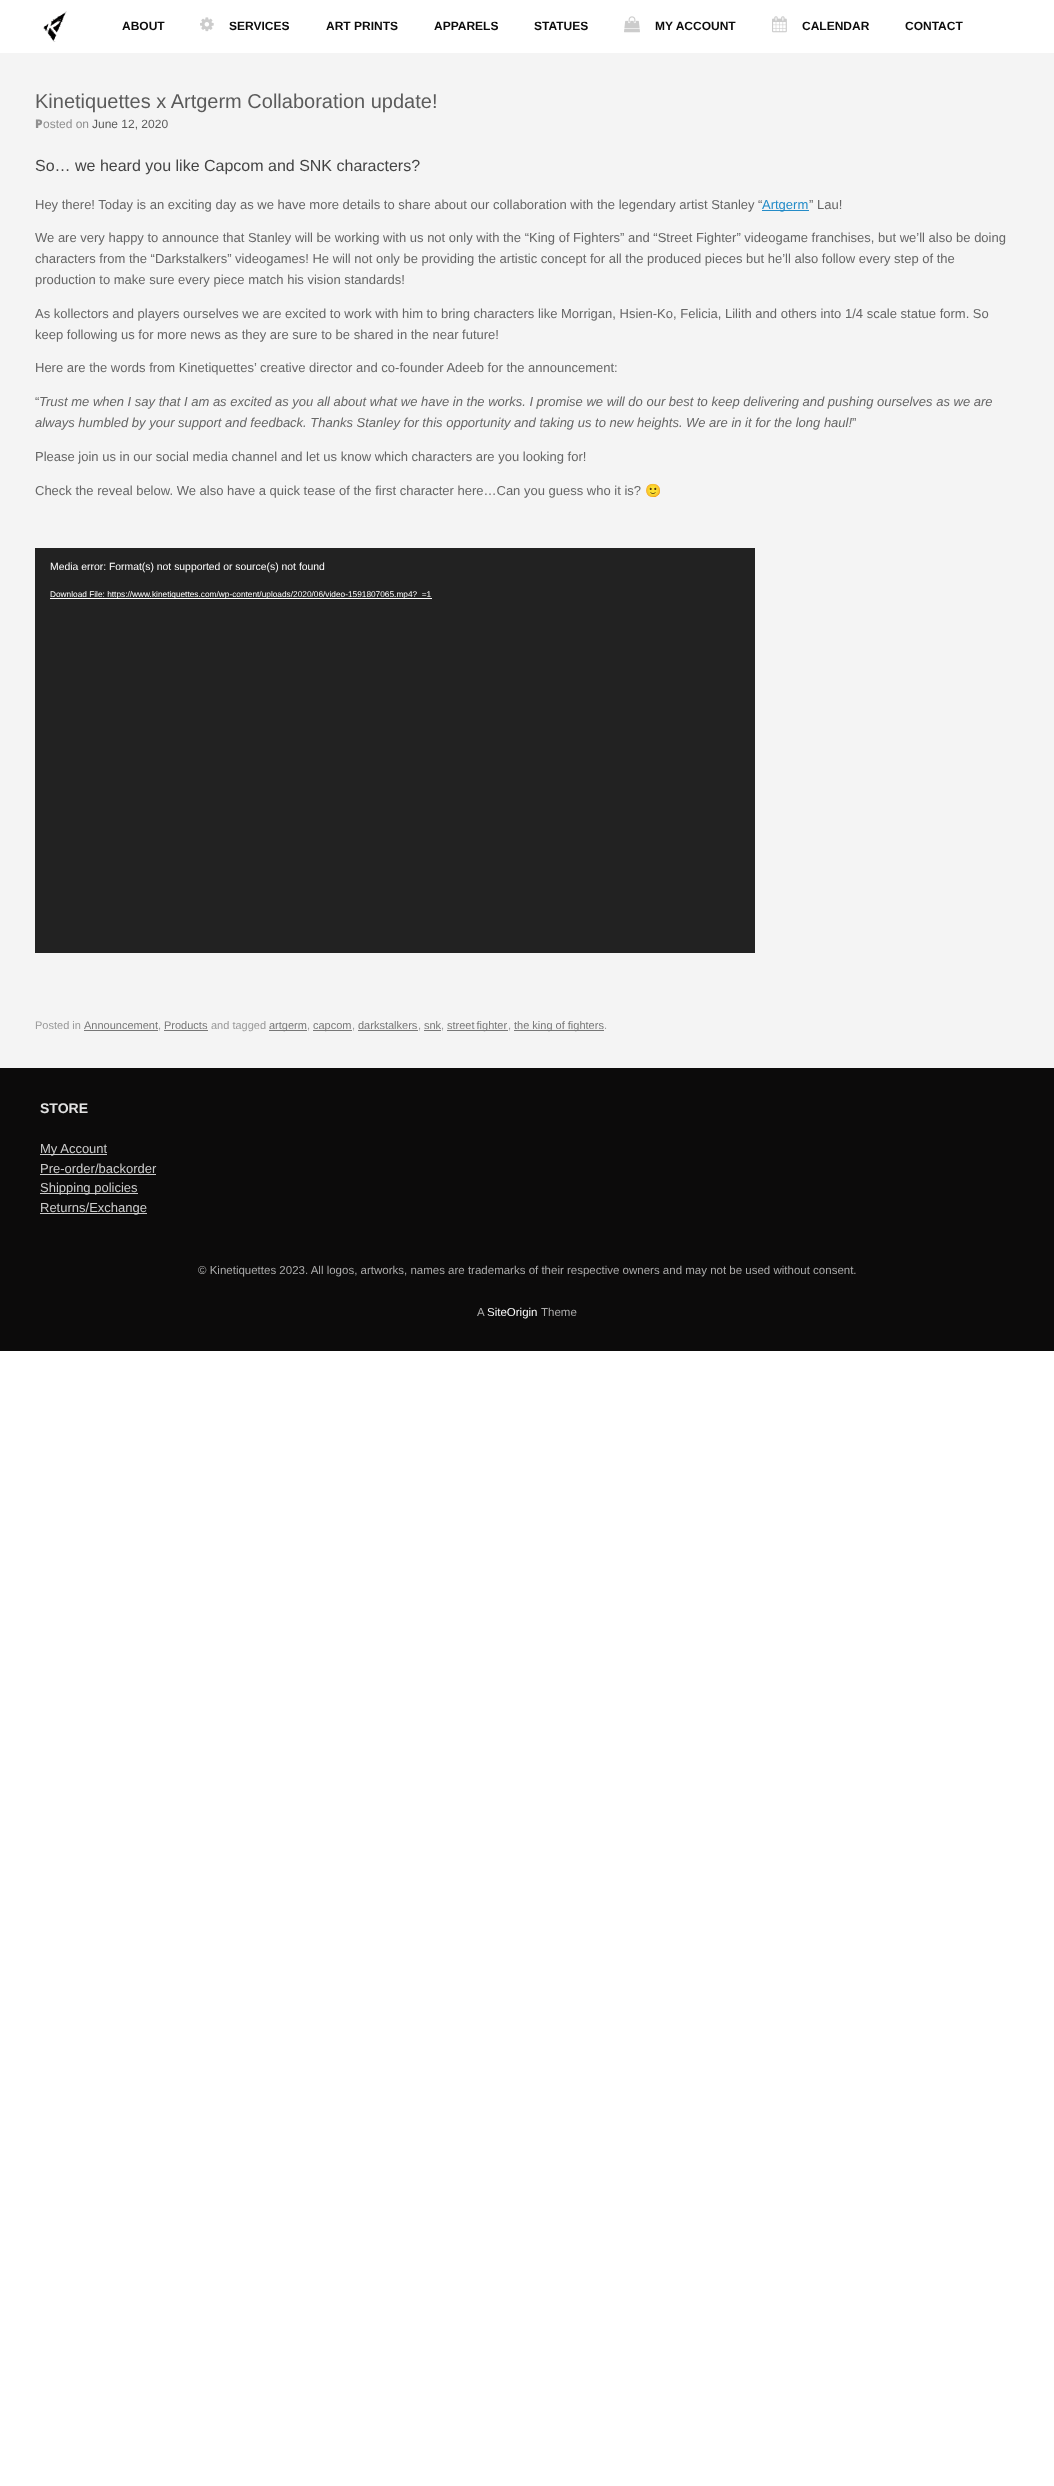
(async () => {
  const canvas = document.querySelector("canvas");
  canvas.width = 1054;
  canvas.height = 2486;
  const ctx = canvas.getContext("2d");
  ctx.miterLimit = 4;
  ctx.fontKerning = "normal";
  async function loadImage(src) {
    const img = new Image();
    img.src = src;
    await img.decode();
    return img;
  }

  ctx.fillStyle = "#ffffff";
  ctx.fillRect(0, 0, 1054, 2486);
  ctx.drawImage(await loadImage("img/1.png"), 43, 11, 24, 31);
  ctx.drawImage(await loadImage("img/2.png"), 200, 17, 14, 15);
  ctx.drawImage(await loadImage("img/3.png"), 624, 16, 16, 17);
  ctx.drawImage(await loadImage("img/4.png"), 772, 16, 15, 17);
  for (const [x, y, w, h, color] of [
    [0, 53, 1054, 1015, "#f4f4f4"],
    [762, 210, 47, 1, "#248cc8"],
    [35, 548, 720, 405, "#222222"],
    [50, 598, 382, 1, "#ffffff"],
    [84, 1030, 74, 1, "#777777"],
    [164, 1030, 44, 1, "#777777"],
    [269, 1030, 38, 1, "#777777"],
    [313, 1030, 39, 1, "#777777"],
    [358, 1030, 60, 1, "#777777"],
    [424, 1030, 17, 1, "#777777"],
    [447, 1030, 61, 1, "#777777"],
    [514, 1030, 90, 1, "#777777"],
    [0, 1068, 1054, 283, "#0c0b0b"],
    [40, 1154, 67, 1, "#cccccc"],
    [40, 1174, 116, 1, "#cccccc"],
    [40, 1193, 98, 1, "#cccccc"],
    [40, 1213, 107, 1, "#cccccc"],
  ]) {
    ctx.fillStyle = color;
    ctx.fillRect(x, y, w, h);
  }
  ctx.font = "bold 12px Liberation Sans";
  ctx.fillStyle = "#0c0c0c";
  for (const [text, x, y] of [
    ["ABOUT", 122, 30],
    ["SERVICES", 229, 30],
    ["ART PRINTS", 326, 30],
    ["APPARELS", 434, 30],
    ["STATUES", 534, 30],
    ["MY ACCOUNT", 655, 30],
    ["CALENDAR", 802, 30],
    ["CONTACT", 905, 30],
  ]) {
    ctx.fillText(text, x, y);
  }
  ctx.font = "20px Liberation Sans";
  ctx.fillStyle = "#5b5b5b";
  ctx.fillText("Kinetiquettes x Artgerm Collaboration update!", 35, 108);
  ctx.font = "900 12px Noto Sans";
  ctx.fillStyle = "#8f8f8f";
  ctx.fillText("P", 35, 128);
  ctx.font = "12px Liberation Sans";
  ctx.fillText("osted on", 43, 128);
  ctx.fillStyle = "#5b5b5b";
  ctx.fillText("June 12, 2020", 92, 128);
  ctx.font = "16px Liberation Sans";
  ctx.fillStyle = "#444444";
  ctx.fillText("So… we heard you like Capcom and SNK characters?", 35, 171);
  ctx.font = "13px Liberation Sans";
  ctx.fillStyle = "#666666";
  ctx.fillText("Hey there! Today is an exciting day as we have more details to share about our collaboration with the legendary artist Stanley “", 35, 209);
  ctx.fillStyle = "#248cc8";
  ctx.fillText("Artgerm", 762, 209);
  ctx.fillStyle = "#666666";
  for (const [text, x, y] of [
    ["” Lau!", 809, 209],
    ["We are very happy to announce that Stanley will be working with us not only with the “King of Fighters” and “Street Fighter” videogame franchises, but we’ll also be doing", 35, 242],
    ["characters from the “Darkstalkers” videogames! He will not only be providing the artistic concept for all the produced pieces but he’ll also follow every step of the", 35, 263],
    ["production to make sure every piece match his vision standards!", 35, 284],
    ["As kollectors and players ourselves we are excited to work with him to bring characters like Morrigan, Hsien-Ko, Felicia, Lilith and others into 1/4 scale statue form. So", 35, 318],
    ["keep following us for more news as they are sure to be shared in the near future!", 35, 339],
    ["Here are the words from Kinetiquettes’ creative director and co-founder Adeeb for the announcement:", 35, 372],
    ["“", 35, 406],
  ]) {
    ctx.fillText(text, x, y);
  }
  ctx.font = "italic 13px Liberation Sans";
  ctx.fillText("Trust me when I say that I am as excited as you all about what we have in the works. I promise we will do our best to keep delivering and pushing ourselves as we are", 39, 406);
  ctx.fillText("always humbled by your support and feedback. Thanks Stanley for this opportunity and taking us to new heights. We are in it for the long haul!", 35, 427);
  ctx.font = "13px Liberation Sans";
  for (const [text, x, y] of [
    ["”", 852, 427],
    ["Please join us in our social media channel and let us know which characters are you looking for!", 35, 461],
    ["Check the reveal below. We also have a quick tease of the first character here…Can you guess who it is?", 35, 495],
  ]) {
    ctx.fillText(text, x, y);
  }
  ctx.font = "13px Noto Color Emoji";
  ctx.fillText("🙂", 645, 495);
  ctx.font = "10.4px Liberation Sans";
  ctx.fillStyle = "#ffffff";
  ctx.fillText("Media error: Format(s) not supported or source(s) not found", 50, 570);
  ctx.font = "8.3px Liberation Sans";
  ctx.fillText("Download File: https://www.kinetiquettes.com/wp-content/uploads/2020/06/video-1591807065.mp4?_=1", 50, 597);
  ctx.font = "11px Liberation Sans";
  ctx.fillStyle = "#999999";
  ctx.fillText("Posted in", 35, 1029);
  ctx.fillStyle = "#777777";
  ctx.fillText("Announcement", 84, 1029);
  ctx.fillStyle = "#999999";
  ctx.fillText(",", 158, 1029);
  ctx.fillStyle = "#777777";
  ctx.fillText("Products", 164, 1029);
  ctx.fillStyle = "#999999";
  ctx.fillText("and tagged", 211, 1029);
  ctx.fillStyle = "#777777";
  ctx.fillText("artgerm", 269, 1029);
  ctx.fillStyle = "#999999";
  ctx.fillText(",", 307, 1029);
  ctx.fillStyle = "#777777";
  ctx.fillText("capcom", 313, 1029);
  ctx.fillStyle = "#999999";
  ctx.fillText(",", 352, 1029);
  ctx.fillStyle = "#777777";
  ctx.fillText("darkstalkers", 358, 1029);
  ctx.fillStyle = "#999999";
  ctx.fillText(",", 418, 1029);
  ctx.fillStyle = "#777777";
  ctx.fillText("snk", 424, 1029);
  ctx.fillStyle = "#999999";
  ctx.fillText(",", 441, 1029);
  ctx.wordSpacing = "-1px";
  ctx.fillStyle = "#777777";
  ctx.fillText("street fighter", 447, 1029);
  ctx.wordSpacing = "0px";
  ctx.fillStyle = "#999999";
  ctx.fillText(",", 508, 1029);
  ctx.fillStyle = "#777777";
  ctx.fillText("the king of fighters", 514, 1029);
  ctx.fillStyle = "#999999";
  ctx.fillText(".", 604, 1029);
  ctx.font = "bold 14px Liberation Sans";
  ctx.fillStyle = "#e2e2e2";
  ctx.fillText("STORE", 40, 1113);
  ctx.font = "13px Liberation Sans";
  ctx.fillStyle = "#cccccc";
  for (const [text, x, y] of [
    ["My Account", 40, 1153],
    ["Pre-order/backorder", 40, 1173],
    ["Shipping policies", 40, 1192],
    ["Returns/Exchange", 40, 1212],
  ]) {
    ctx.fillText(text, x, y);
  }
  ctx.font = "11.5px Liberation Sans";
  ctx.fillStyle = "#aaaaaa";
  ctx.fillText("© Kinetiquettes 2023. All logos, artworks, names are trademarks of their respective owners and may not be used without consent.", 198, 1274);
  ctx.fillText("A", 477, 1316);
  ctx.fillStyle = "#f9f9f9";
  ctx.fillText("SiteOrigin", 487, 1316);
  ctx.fillStyle = "#aaaaaa";
  ctx.fillText("Theme", 541, 1316);
})();
